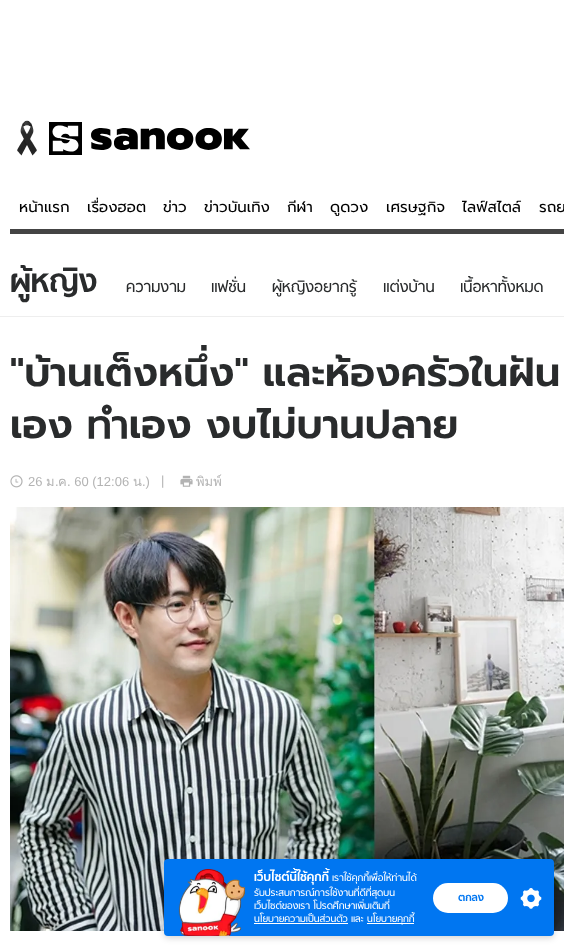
(async () => {
  const canvas = document.querySelector("canvas");
  canvas.width = 564;
  canvas.height = 946;
  const ctx = canvas.getContext("2d");
  ctx.miterLimit = 4;
  ctx.fontKerning = "normal";
  async function loadImage(src) {
    const img = new Image();
    img.src = src;
    await img.decode();
    return img;
  }

  ctx.fillStyle = "#ffffff";
  ctx.fillRect(0, 0, 564, 946);
  ctx.drawImage(await loadImage("img/1.png"), 17, 120, 233, 36);
  ctx.fillStyle = "#444444";
  ctx.fillRect(10, 229, 554, 5);
  ctx.fillStyle = "#eeeeee";
  ctx.fillRect(0, 316, 564, 1);
  ctx.drawImage(await loadImage("img/2.png"), 10, 475, 13, 13);
  ctx.drawImage(await loadImage("img/3.png"), 180, 475, 13, 12);
  ctx.drawImage(await loadImage("img/4.png"), 10, 507, 554, 424);
  ctx.fillStyle = "rgba(0, 0, 0, 0.17)";
  ctx.filter = "blur(3px)";
  ctx.beginPath();
  ctx.roundRect(164, 861, 390, 77, 4);
  ctx.fill();
  ctx.filter = "none";
  ctx.fillStyle = "#0076f1";
  ctx.beginPath();
  ctx.roundRect(164, 859, 390, 77, 4);
  ctx.fill();
  ctx.drawImage(await loadImage("img/5.png"), 178, 869, 67, 67);
  ctx.fillStyle = "#ffffff";
  ctx.fillRect(254, 923, 94, 1);
  ctx.fillRect(367, 923, 47, 1);
  ctx.beginPath();
  ctx.roundRect(433, 883, 75, 30, 15);
  ctx.fill();
  ctx.drawImage(await loadImage("img/6.png"), 520, 888, 22, 21);
  ctx.font = "15px Prompt";
  ctx.fillStyle = "#000000";
  for (const [text, x, y] of [
    ["หน้าแรก", 19, 212],
    ["เรื่องฮอต", 87, 212],
    ["ข่าว", 163, 212],
    ["ข่าวบันเทิง", 204, 212],
    ["กีฬา", 287, 212],
    ["ดูดวง", 330, 212],
    ["เศรษฐกิจ", 386, 212],
    ["ไลฟ์สไตล์", 462, 212],
    ["รถย", 539, 212],
  ]) {
    ctx.fillText(text, x, y);
  }
  ctx.font = "bold 36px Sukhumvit";
  ctx.fillStyle = "#292b2c";
  ctx.fillText("ผู้หญิง", 10, 292);
  ctx.font = "17.5px Sukhumvit";
  for (const [text, x, y] of [
    ["ความงาม", 126, 292],
    ["แฟชั่น", 211, 292],
    ["ผู้หญิงอยากรู้", 272, 292],
    ["แต่งบ้าน", 383, 292],
    ["เนื้อหาทั้งหมด", 460, 292],
  ]) {
    ctx.fillText(text, x, y);
  }
  ctx.font = "600 40px Prompt";
  ctx.fillText("\"บ้านเต็งหนึ่ง\" และห้องครัวในฝัน", 10, 386);
  ctx.fillText("เอง ทำเอง งบไม่บานปลาย", 10, 438);
  ctx.font = "13px Liberation Sans";
  ctx.fillStyle = "#b3b3b3";
  ctx.fillText("26", 28, 486);
  ctx.font = "13px Loma";
  ctx.fillText("ม", 46, 486);
  ctx.font = "13px Liberation Sans";
  ctx.fillText(".", 55, 486);
  ctx.font = "13px Loma";
  ctx.fillText("ค", 58, 486);
  ctx.font = "13px Liberation Sans";
  ctx.fillText(". 60 (12:06", 67, 486);
  ctx.font = "13px Loma";
  ctx.fillText("น", 133, 486);
  ctx.font = "13px Liberation Sans";
  ctx.fillText(".)", 142, 486);
  ctx.fillText("|", 161, 485);
  ctx.font = "13px Loma";
  ctx.fillText("พิมพ์", 196, 486);
  ctx.font = "bold 13.75px Sukhumvit";
  ctx.fillStyle = "#ffffff";
  ctx.fillText("เว็บไซต์นี้ใช้คุกกี้", 254, 881);
  ctx.font = "11px Sukhumvit";
  for (const [text, x, y] of [
    ["เราใช้คุกกี้เพื่อให้ท่านได้", 332, 881],
    ["รับประสบการณ์การใช้งานที่ดีที่สุดบน", 254, 896],
    ["เว็บไซต์ของเรา โปรดศึกษาเพิ่มเติมที่", 254, 909],
    ["นโยบายความเป็นส่วนตัว และ", 254, 922],
    ["นโยบายคุกกี้", 367, 922],
  ]) {
    ctx.fillText(text, x, y);
  }
  ctx.font = "bold 12px Sukhumvit";
  ctx.fillStyle = "#0076f1";
  ctx.fillText("ตกลง", 458, 901);
})();
